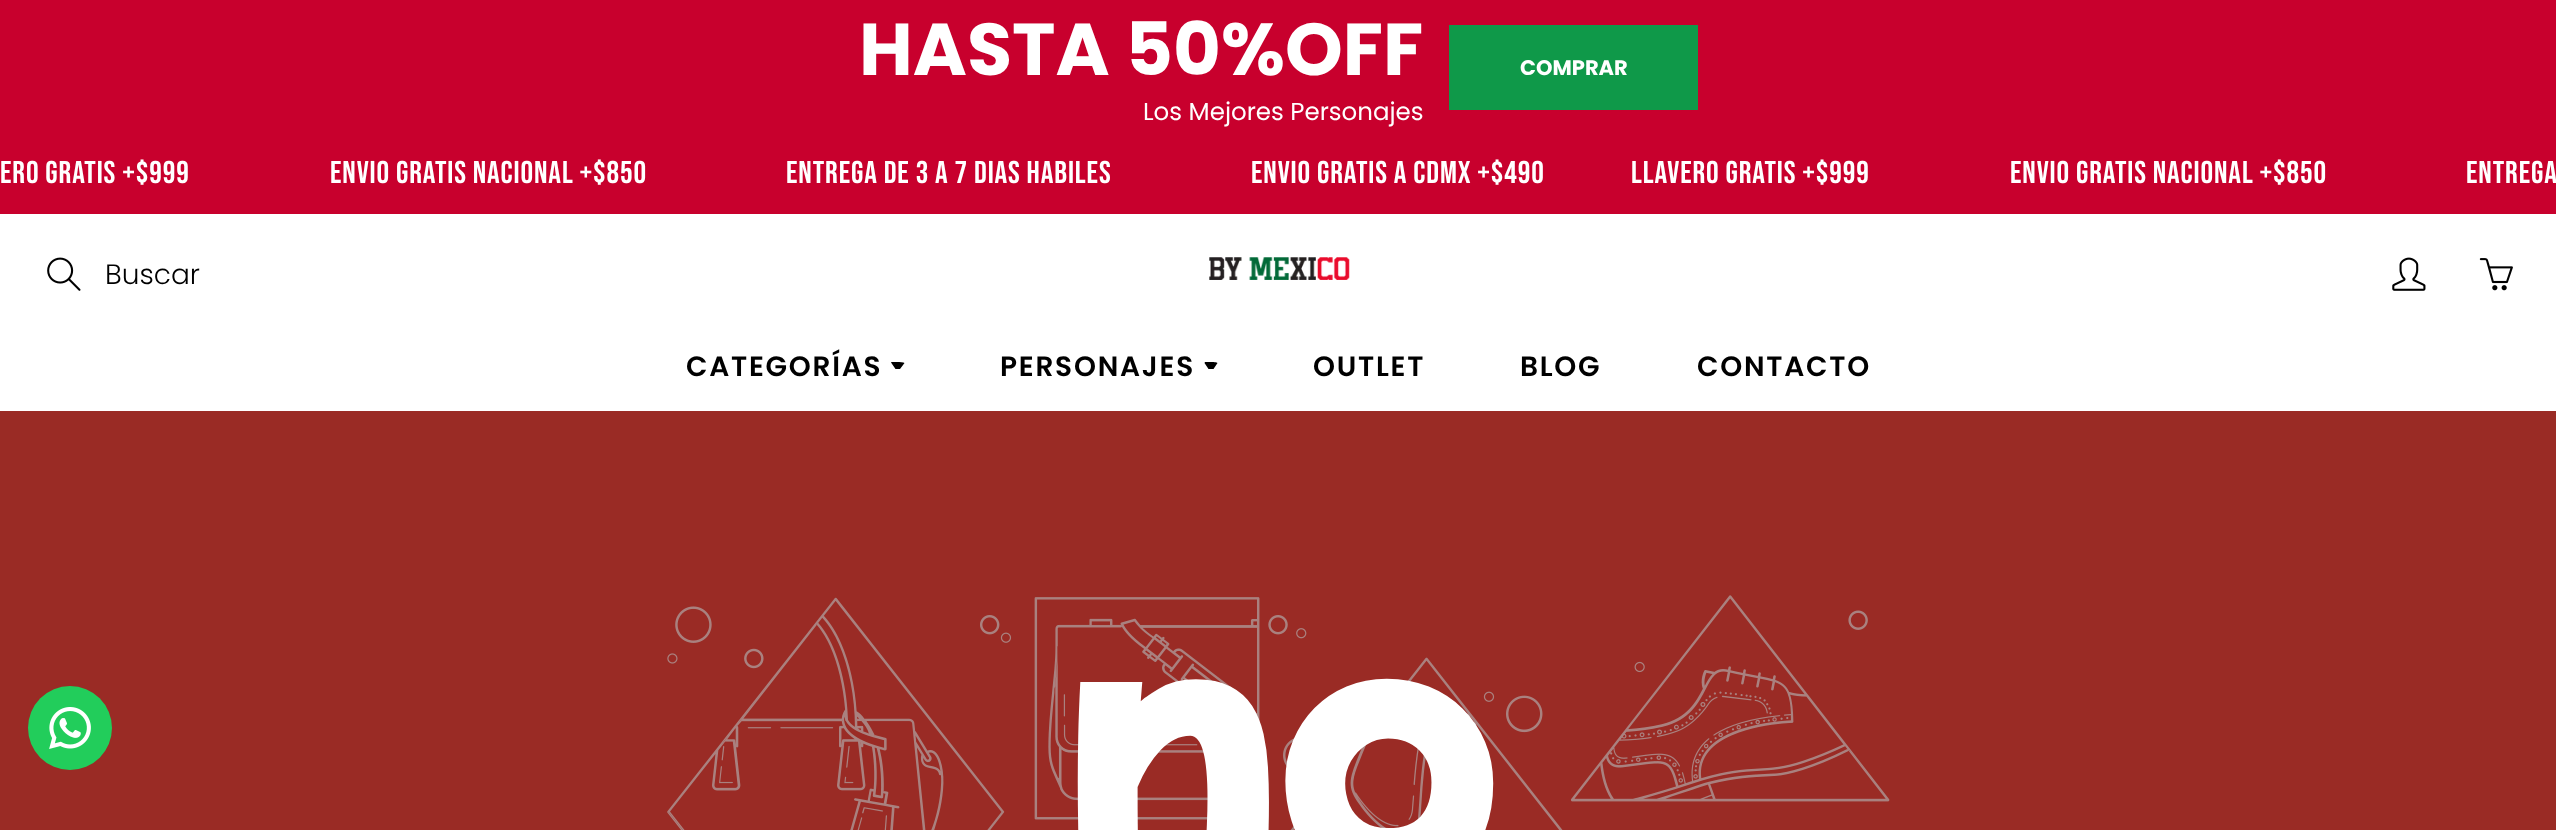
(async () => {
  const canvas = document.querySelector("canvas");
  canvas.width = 2556;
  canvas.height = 830;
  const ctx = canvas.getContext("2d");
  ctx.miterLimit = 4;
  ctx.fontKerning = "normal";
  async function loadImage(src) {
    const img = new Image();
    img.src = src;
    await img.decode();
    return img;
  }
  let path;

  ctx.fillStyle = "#ffffff";
  ctx.fillRect(0, 0, 2556, 830);
  ctx.fillStyle = "#c8002d";
  ctx.fillRect(0, 0, 2556, 214);
  ctx.fillStyle = "#0f9949";
  ctx.fillRect(1449, 25, 249, 85);
  ctx.drawImage(await loadImage("img/1.png"), 47, 257, 34, 34);
  ctx.drawImage(await loadImage("img/2.png"), 1209, 257, 141, 23);
  ctx.drawImage(await loadImage("img/3.png"), 2392, 257, 34, 34);
  ctx.drawImage(await loadImage("img/4.png"), 2479, 258, 34, 33);
  ctx.fillStyle = "#000000";
  path = new Path2D("M891 362.5L891.5 362C894 362 903 361.5 904.5 363L900 369H895.5Z");
  ctx.fill(path);
  path = new Path2D("M1204.5 363L1205 362C1207 362 1216.5 361.5 1217.5 363L1213.5 369H1208.5Z");
  ctx.fill(path);
  ctx.fillStyle = "#9a2b25";
  ctx.fillRect(0, 411, 2556, 419);
  ctx.drawImage(await loadImage("img/5.png"), 667, 595, 1223, 235);
  ctx.fillStyle = "#22cd5b";
  ctx.beginPath();
  ctx.arc(70, 728, 42, 0, Math.PI * 2);
  ctx.fill();
  ctx.drawImage(await loadImage("img/6.png"), 49, 707, 42, 42);
  ctx.font = "bold 73.5px Poppins";
  ctx.fillStyle = "#ffffff";
  ctx.fillText("HASTA 50%OFF", 859, 75);
  ctx.font = "24.5px Poppins";
  ctx.fillText("Los Mejores Personajes", 1143, 120);
  ctx.font = "bold 21px Poppins";
  ctx.fillText("COMPRAR", 1520, 75);
  ctx.letterSpacing = "0.9px";
  ctx.font = "31.5px Bebas Neue";
  for (const [text, x, y] of [
    ["ERO GRATIS +$999", 0, 183],
    ["ENVIO GRATIS NACIONAL +$850", 330, 183],
    ["ENTREGA DE 3 A 7 DIAS HABILES", 786, 183],
    ["ENVIO GRATIS A CDMX +$490", 1251, 183],
    ["LLAVERO GRATIS +$999", 1631, 183],
    ["ENVIO GRATIS NACIONAL +$850", 2010, 183],
    ["ENTREGA", 2466, 183],
  ]) {
    ctx.fillText(text, x, y);
  }
  ctx.letterSpacing = "0px";
  ctx.font = "300 28px Poppins";
  ctx.fillStyle = "#000000";
  ctx.fillText("Buscar", 105, 284);
  ctx.letterSpacing = "1.75px";
  ctx.font = "600 28px Poppins";
  for (const [text, x, y] of [
    ["CATEGORÍAS", 686, 376],
    ["PERSONAJES", 1000, 376],
    ["OUTLET", 1313, 376],
    ["BLOG", 1520, 376],
    ["CONTACTO", 1697, 376],
  ]) {
    ctx.fillText(text, x, y);
  }
  ctx.letterSpacing = "0px";
  ctx.font = "bold 315px Mochiy Pop P One";
  ctx.fillStyle = "#ffffff";
  ctx.fillText("no", 1062, 862);
})();
